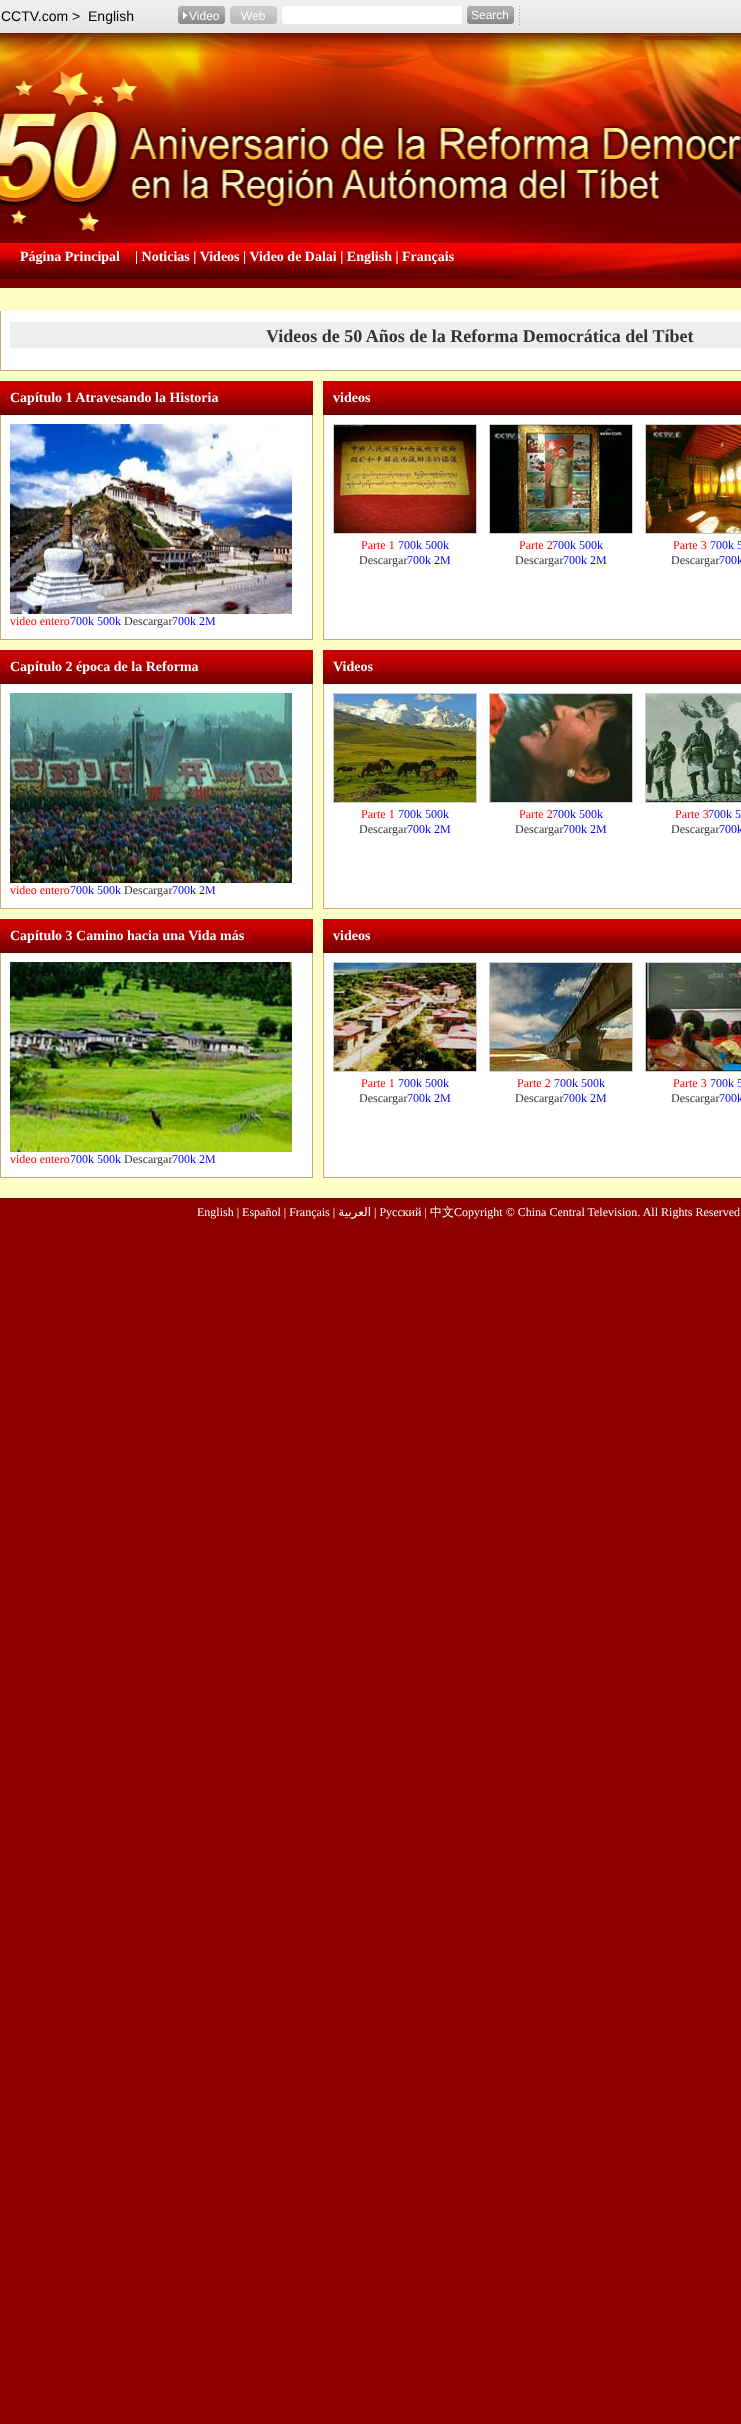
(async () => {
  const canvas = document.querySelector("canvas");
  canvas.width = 741;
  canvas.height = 2424;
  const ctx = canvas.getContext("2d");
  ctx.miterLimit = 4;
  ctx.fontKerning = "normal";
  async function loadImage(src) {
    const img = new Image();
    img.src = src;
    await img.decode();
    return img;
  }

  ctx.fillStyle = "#8c0000";
  ctx.fillRect(0, 0, 741, 2424);
  ctx.fillStyle = "#feffc6";
  ctx.fillRect(0, 371, 741, 827);
  ctx.drawImage(await loadImage("img/1.png"), 0, 33, 741, 278);
  ctx.drawImage(await loadImage("img/2.png"), 0, 0, 741, 33);
  ctx.drawImage(await loadImage("img/3.png"), 178, 6, 47, 18);
  ctx.drawImage(await loadImage("img/4.png"), 230, 6, 47, 18);
  ctx.fillStyle = "#ffffff";
  ctx.fillRect(284, 6, 178, 18);
  ctx.drawImage(await loadImage("img/5.png"), 282, 6, 2, 18);
  ctx.drawImage(await loadImage("img/6.png"), 467, 6, 47, 18);
  ctx.drawImage(await loadImage("img/7.png"), 519, 6, 1, 19);
  for (const [x, y, w, h, color] of [
    [1, 311, 740, 59, "#ffffff"],
    [0, 370, 741, 1, "#c9a976"],
    [0, 311, 1, 60, "#c9a976"],
    [10, 322, 731, 26, "#eeeeee"],
    [1, 415, 311, 224, "#ffffff"],
  ]) {
    ctx.fillStyle = color;
    ctx.fillRect(x, y, w, h);
  }
  ctx.drawImage(await loadImage("img/8.png"), 0, 381, 313, 34);
  for (const [x, y, w, h, color] of [
    [312, 415, 1, 225, "#c9a976"],
    [0, 639, 313, 1, "#c9a976"],
    [0, 415, 1, 225, "#c9a976"],
  ]) {
    ctx.fillStyle = color;
    ctx.fillRect(x, y, w, h);
  }
  ctx.drawImage(await loadImage("img/9.png"), 10, 424, 282, 190);
  ctx.fillStyle = "#ffffff";
  ctx.fillRect(1, 684, 311, 224);
  ctx.drawImage(await loadImage("img/8.png"), 0, 650, 313, 34);
  for (const [x, y, w, h, color] of [
    [312, 684, 1, 225, "#c9a976"],
    [0, 908, 313, 1, "#c9a976"],
    [0, 684, 1, 225, "#c9a976"],
  ]) {
    ctx.fillStyle = color;
    ctx.fillRect(x, y, w, h);
  }
  ctx.drawImage(await loadImage("img/10.png"), 10, 693, 282, 190);
  ctx.fillStyle = "#ffffff";
  ctx.fillRect(1, 953, 311, 224);
  ctx.drawImage(await loadImage("img/8.png"), 0, 919, 313, 34);
  for (const [x, y, w, h, color] of [
    [312, 953, 1, 225, "#c9a976"],
    [0, 1177, 313, 1, "#c9a976"],
    [0, 953, 1, 225, "#c9a976"],
  ]) {
    ctx.fillStyle = color;
    ctx.fillRect(x, y, w, h);
  }
  ctx.drawImage(await loadImage("img/11.png"), 10, 962, 282, 190);
  ctx.fillStyle = "#ffffff";
  ctx.fillRect(324, 415, 417, 224);
  ctx.drawImage(await loadImage("img/12.png"), 323, 381, 418, 34);
  ctx.fillStyle = "#c9a976";
  ctx.fillRect(323, 639, 418, 1);
  ctx.fillRect(323, 415, 1, 225);
  ctx.strokeStyle = "#cccccc";
  ctx.strokeRect(333.5, 424.5, 143, 109);
  ctx.drawImage(await loadImage("img/13.png"), 334, 425, 142, 108);
  ctx.strokeRect(489.5, 424.5, 143, 109);
  ctx.drawImage(await loadImage("img/14.png"), 490, 425, 142, 108);
  ctx.strokeRect(645.5, 424.5, 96, 109);
  ctx.drawImage(await loadImage("img/15.png"), 646, 425, 95, 108);
  ctx.fillStyle = "#ffffff";
  ctx.fillRect(324, 684, 417, 224);
  ctx.drawImage(await loadImage("img/12.png"), 323, 650, 418, 34);
  ctx.fillStyle = "#c9a976";
  ctx.fillRect(323, 908, 418, 1);
  ctx.fillRect(323, 684, 1, 225);
  ctx.strokeRect(333.5, 693.5, 143, 109);
  ctx.drawImage(await loadImage("img/16.png"), 334, 694, 142, 108);
  ctx.strokeRect(489.5, 693.5, 143, 109);
  ctx.drawImage(await loadImage("img/17.png"), 490, 694, 142, 108);
  ctx.strokeRect(645.5, 693.5, 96, 109);
  ctx.drawImage(await loadImage("img/18.png"), 646, 694, 95, 108);
  ctx.fillStyle = "#ffffff";
  ctx.fillRect(324, 953, 417, 224);
  ctx.drawImage(await loadImage("img/12.png"), 323, 919, 418, 34);
  ctx.fillStyle = "#c9a976";
  ctx.fillRect(323, 1177, 418, 1);
  ctx.fillRect(323, 953, 1, 225);
  ctx.strokeRect(333.5, 962.5, 143, 109);
  ctx.drawImage(await loadImage("img/19.png"), 334, 963, 142, 108);
  ctx.strokeRect(489.5, 962.5, 143, 109);
  ctx.drawImage(await loadImage("img/20.png"), 490, 963, 142, 108);
  ctx.strokeRect(645.5, 962.5, 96, 109);
  ctx.drawImage(await loadImage("img/21.png"), 646, 963, 95, 108);
  ctx.font = "14px Liberation Sans";
  ctx.fillStyle = "#000000";
  ctx.fillText("CCTV.com >  English", 1, 21);
  ctx.font = "12px Liberation Sans";
  ctx.fillStyle = "#ffffff";
  for (const [text, x, y] of [
    ["Video", 189, 20],
    ["Web", 241, 20],
    ["Search", 471, 19],
  ]) {
    ctx.fillText(text, x, y);
  }
  ctx.font = "bold 14px Liberation Serif";
  ctx.fillText("Página Principal", 20, 261);
  ctx.fillText("| Noticias | Videos | Video de Dalai | English | Français", 135, 261);
  ctx.font = "bold 18px Liberation Serif";
  ctx.fillStyle = "#333333";
  ctx.fillText("Videos de 50 Años de la Reforma Democrática del Tíbet", 266, 342);
  ctx.font = "bold 14px Liberation Serif";
  ctx.fillStyle = "#ffffff";
  ctx.fillText("Capítulo 1 Atravesando la Historia", 10, 402);
  ctx.font = "12px Liberation Serif";
  ctx.fillStyle = "#ff0000";
  ctx.fillText("video entero", 10, 625);
  ctx.fillStyle = "#0000ff";
  ctx.fillText("700k 500k", 70, 625);
  ctx.fillStyle = "#333333";
  ctx.fillText("Descargar", 124, 625);
  ctx.fillStyle = "#0000ff";
  ctx.fillText("700k 2M", 172, 625);
  ctx.font = "bold 14px Liberation Serif";
  ctx.fillStyle = "#ffffff";
  ctx.fillText("Capítulo 2 época de la Reforma", 10, 671);
  ctx.font = "12px Liberation Serif";
  ctx.fillStyle = "#ff0000";
  ctx.fillText("video entero", 10, 894);
  ctx.fillStyle = "#0000ff";
  ctx.fillText("700k 500k", 70, 894);
  ctx.fillStyle = "#333333";
  ctx.fillText("Descargar", 124, 894);
  ctx.fillStyle = "#0000ff";
  ctx.fillText("700k 2M", 172, 894);
  ctx.font = "bold 14px Liberation Serif";
  ctx.fillStyle = "#ffffff";
  ctx.fillText("Capítulo 3 Camino hacia una Vida más", 10, 940);
  ctx.font = "12px Liberation Serif";
  ctx.fillStyle = "#ff0000";
  ctx.fillText("video entero", 10, 1163);
  ctx.fillStyle = "#0000ff";
  ctx.fillText("700k 500k", 70, 1163);
  ctx.fillStyle = "#333333";
  ctx.fillText("Descargar", 124, 1163);
  ctx.fillStyle = "#0000ff";
  ctx.fillText("700k 2M", 172, 1163);
  ctx.font = "bold 14px Liberation Serif";
  ctx.fillStyle = "#ffffff";
  ctx.fillText("videos", 333, 402);
  ctx.font = "12px Liberation Serif";
  ctx.fillStyle = "#ff0000";
  ctx.fillText("Parte 1", 361, 549);
  ctx.fillStyle = "#0000ff";
  ctx.fillText("700k 500k", 398, 549);
  ctx.fillStyle = "#333333";
  ctx.fillText("Descargar", 359, 564);
  ctx.fillStyle = "#0000ff";
  ctx.fillText("700k 2M", 407, 564);
  ctx.fillStyle = "#ff0000";
  ctx.fillText("Parte 2", 519, 549);
  ctx.fillStyle = "#0000ff";
  ctx.fillText("700k 500k", 552, 549);
  ctx.fillStyle = "#333333";
  ctx.fillText("Descargar", 515, 564);
  ctx.fillStyle = "#0000ff";
  ctx.fillText("700k 2M", 563, 564);
  ctx.fillStyle = "#ff0000";
  ctx.fillText("Parte 3", 673, 549);
  ctx.fillStyle = "#0000ff";
  ctx.fillText("700k 5", 710, 549);
  ctx.fillStyle = "#333333";
  ctx.fillText("Descargar", 671, 564);
  ctx.fillStyle = "#0000ff";
  ctx.fillText("700k", 719, 564);
  ctx.font = "bold 14px Liberation Serif";
  ctx.fillStyle = "#ffffff";
  ctx.fillText("Videos", 333, 671);
  ctx.font = "12px Liberation Serif";
  ctx.fillStyle = "#ff0000";
  ctx.fillText("Parte 1", 361, 818);
  ctx.fillStyle = "#0000ff";
  ctx.fillText("700k 500k", 398, 818);
  ctx.fillStyle = "#333333";
  ctx.fillText("Descargar", 359, 833);
  ctx.fillStyle = "#0000ff";
  ctx.fillText("700k 2M", 407, 833);
  ctx.fillStyle = "#ff0000";
  ctx.fillText("Parte 2", 519, 818);
  ctx.fillStyle = "#0000ff";
  ctx.fillText("700k 500k", 552, 818);
  ctx.fillStyle = "#333333";
  ctx.fillText("Descargar", 515, 833);
  ctx.fillStyle = "#0000ff";
  ctx.fillText("700k 2M", 563, 833);
  ctx.fillStyle = "#ff0000";
  ctx.fillText("Parte 3", 675, 818);
  ctx.fillStyle = "#0000ff";
  ctx.fillText("700k 5", 708, 818);
  ctx.fillStyle = "#333333";
  ctx.fillText("Descargar", 671, 833);
  ctx.fillStyle = "#0000ff";
  ctx.fillText("700k", 719, 833);
  ctx.font = "bold 14px Liberation Serif";
  ctx.fillStyle = "#ffffff";
  ctx.fillText("videos", 333, 940);
  ctx.font = "12px Liberation Serif";
  ctx.fillStyle = "#ff0000";
  ctx.fillText("Parte 1", 361, 1087);
  ctx.fillStyle = "#0000ff";
  ctx.fillText("700k 500k", 398, 1087);
  ctx.fillStyle = "#333333";
  ctx.fillText("Descargar", 359, 1102);
  ctx.fillStyle = "#0000ff";
  ctx.fillText("700k 2M", 407, 1102);
  ctx.fillStyle = "#ff0000";
  ctx.fillText("Parte 2", 517, 1087);
  ctx.fillStyle = "#0000ff";
  ctx.fillText("700k 500k", 554, 1087);
  ctx.fillStyle = "#333333";
  ctx.fillText("Descargar", 515, 1102);
  ctx.fillStyle = "#0000ff";
  ctx.fillText("700k 2M", 563, 1102);
  ctx.fillStyle = "#ff0000";
  ctx.fillText("Parte 3", 673, 1087);
  ctx.fillStyle = "#0000ff";
  ctx.fillText("700k 5", 710, 1087);
  ctx.fillStyle = "#333333";
  ctx.fillText("Descargar", 671, 1102);
  ctx.fillStyle = "#0000ff";
  ctx.fillText("700k", 719, 1102);
  ctx.fillStyle = "#ffffff";
  ctx.fillText("English | Español | Français |", 197, 1216);
  ctx.direction = "rtl";
  ctx.font = "12px DejaVu Sans";
  ctx.fillText("العربية", 371, 1216);
  ctx.direction = "ltr";
  ctx.font = "12px Liberation Serif";
  ctx.fillText("| Pусский |", 374, 1216);
  ctx.font = "500 12px WenQuanYi Zen Hei";
  ctx.fillText("中文", 430, 1216);
  ctx.font = "12px Liberation Serif";
  ctx.fillText("Copyright © China Central Television. All Rights Reserved", 454, 1216);
})();
